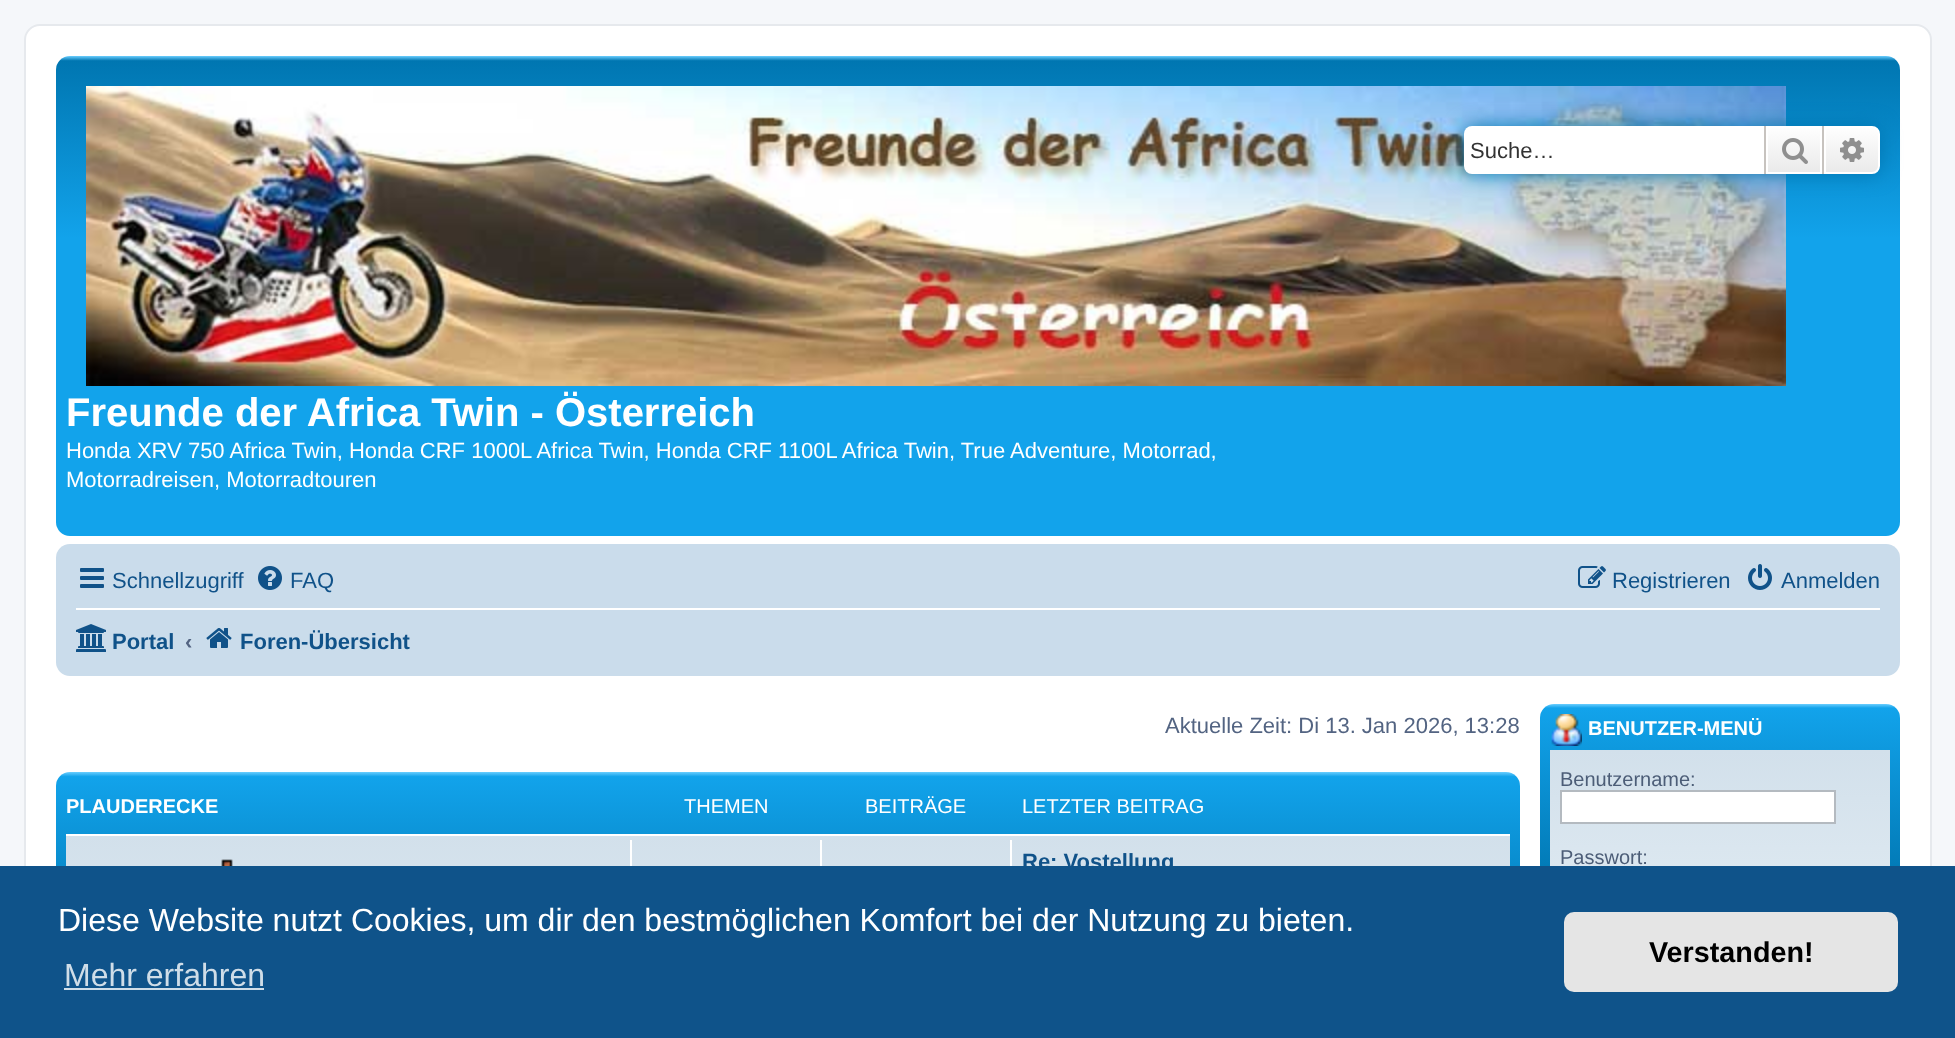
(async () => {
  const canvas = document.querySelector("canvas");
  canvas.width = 1955;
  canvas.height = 1038;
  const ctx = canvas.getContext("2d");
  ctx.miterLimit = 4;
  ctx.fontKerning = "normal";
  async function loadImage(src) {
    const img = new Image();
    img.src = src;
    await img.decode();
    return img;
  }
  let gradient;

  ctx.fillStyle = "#f5f7fa";
  ctx.fillRect(0, 0, 1955, 1038);
  ctx.fillStyle = "#ffffff";
  ctx.beginPath();
  ctx.roundRect(25, 25, 1906, 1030, 15);
  ctx.fill();
  ctx.strokeStyle = "#e6e9ed";
  ctx.lineWidth = 2;
  ctx.stroke();
  gradient = ctx.createLinearGradient(978, 56, 978, 536);
  gradient.addColorStop(0, "#6aceff");
  gradient.addColorStop(0.01, "#0076b1");
  gradient.addColorStop(0.38, "#12a3eb");
  gradient.addColorStop(1, "#12a3eb");
  ctx.fillStyle = gradient;
  ctx.beginPath();
  ctx.roundRect(56, 56, 1844, 480, 14);
  ctx.fill();
  ctx.drawImage(await loadImage("img/3.png"), 86, 86, 1700, 300);
  ctx.fillStyle = "#0075b0";
  ctx.filter = "blur(10px)";
  ctx.beginPath();
  ctx.roundRect(1464, 126, 416, 48, 8);
  ctx.fill();
  ctx.filter = "none";
  ctx.fillStyle = "#ffffff";
  ctx.beginPath();
  ctx.roundRect(1464, 126, 300, 48, [8, 0, 0, 8]);
  ctx.fill();
  gradient = ctx.createLinearGradient(1794, 126, 1794, 174);
  gradient.addColorStop(0, "#ffffff");
  gradient.addColorStop(1, "#e9e9e9");
  ctx.fillStyle = gradient;
  ctx.fillRect(1768, 128, 52, 44);
  ctx.strokeStyle = "#ffffff";
  ctx.strokeRect(1767, 127, 54, 46);
  ctx.fillStyle = "#c7c3bf";
  ctx.fillRect(1822, 126, 2, 48);
  ctx.fillRect(1764, 126, 2, 48);
  ctx.drawImage(await loadImage("img/1.png"), 1782, 138, 26, 26);
  gradient = ctx.createLinearGradient(1852, 126, 1852, 174);
  gradient.addColorStop(0, "#ffffff");
  gradient.addColorStop(1, "#e9e9e9");
  ctx.fillStyle = gradient;
  ctx.beginPath();
  ctx.roundRect(1825, 127, 54, 46, [0, 7, 7, 0]);
  ctx.fill();
  ctx.stroke();
  ctx.drawImage(await loadImage("img/2.png"), 1840, 138, 24, 24);
  ctx.fillStyle = "#cadceb";
  ctx.beginPath();
  ctx.roundRect(56, 544, 1844, 132, 14);
  ctx.fill();
  ctx.drawImage(await loadImage("img/4.png"), 80, 568, 24, 20);
  ctx.drawImage(await loadImage("img/5.png"), 258, 566, 24, 24);
  ctx.drawImage(await loadImage("img/6.png"), 1578, 566, 28, 22);
  ctx.drawImage(await loadImage("img/7.png"), 1748, 564, 24, 26);
  ctx.fillStyle = "#ffffff";
  ctx.fillRect(76, 608, 1804, 2);
  ctx.drawImage(await loadImage("img/8.png"), 76, 624, 30, 28);
  ctx.drawImage(await loadImage("img/9.png"), 206, 628, 26, 20);
  gradient = ctx.createLinearGradient(788, 772, 788, 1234);
  gradient.addColorStop(0, "#6aceff");
  gradient.addColorStop(0.01, "#12a3eb");
  gradient.addColorStop(0.4, "#0076b1");
  gradient.addColorStop(1, "#0076b1");
  ctx.fillStyle = gradient;
  ctx.beginPath();
  ctx.roundRect(56, 772, 1464, 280, 14);
  ctx.fill();
  gradient = ctx.createLinearGradient(788, 834, 788, 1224);
  gradient.addColorStop(0, "#d2e0eb");
  gradient.addColorStop(1, "#eef5f9");
  ctx.fillStyle = gradient;
  ctx.fillRect(66, 836, 1444, 30);
  ctx.fillStyle = "#ffffff";
  ctx.fillRect(66, 834, 1444, 2);
  ctx.drawImage(await loadImage("img/10.png"), 221, 859, 12, 7);
  for (const [x, y, w, h, color] of [
    [630, 840, 2, 26, "#ffffff"],
    [820, 840, 2, 26, "#ffffff"],
    [1010, 840, 2, 26, "#ffffff"],
  ]) {
    ctx.fillStyle = color;
    ctx.fillRect(x, y, w, h);
  }
  gradient = ctx.createLinearGradient(1720, 704, 1720, 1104);
  gradient.addColorStop(0, "#6aceff");
  gradient.addColorStop(0.01, "#12a3eb");
  gradient.addColorStop(0.46, "#0076b1");
  gradient.addColorStop(1, "#0076b1");
  ctx.fillStyle = gradient;
  ctx.beginPath();
  ctx.roundRect(1540, 704, 360, 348, 14);
  ctx.fill();
  ctx.drawImage(await loadImage("img/11.png"), 1551, 714, 31, 32);
  gradient = ctx.createLinearGradient(1720, 750, 1720, 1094);
  gradient.addColorStop(0, "#d2e0eb");
  gradient.addColorStop(1, "#eef5f9");
  ctx.fillStyle = gradient;
  ctx.fillRect(1550, 750, 340, 116);
  ctx.fillStyle = "#ffffff";
  ctx.beginPath();
  ctx.rect(1561, 791, 274, 32);
  ctx.fill();
  ctx.strokeStyle = "#b4bac0";
  ctx.stroke();
  ctx.font = "22px Liberation Sans";
  ctx.fillStyle = "#333333";
  ctx.fillText("Suche…", 1470, 158);
  ctx.font = "bold 40px Liberation Sans";
  ctx.fillStyle = "#ffffff";
  ctx.fillText("Freunde der Africa Twin - Österreich", 66, 426);
  ctx.font = "22px Liberation Sans";
  ctx.fillText("Honda XRV 750 Africa Twin, Honda CRF 1000L Africa Twin, Honda CRF 1100L Africa Twin, True Adventure, Motorrad,", 66, 458);
  ctx.fillText("Motorradreisen, Motorradtouren", 66, 487);
  ctx.fillStyle = "#105289";
  for (const [text, x, y] of [
    ["Schnellzugriff", 112, 588],
    ["FAQ", 290, 588],
    ["Registrieren", 1612, 588],
    ["Anmelden", 1781, 588],
  ]) {
    ctx.fillText(text, x, y);
  }
  ctx.font = "bold 22px Liberation Sans";
  ctx.fillText("Portal", 112, 649);
  ctx.fillStyle = "#536482";
  ctx.fillText("‹", 185, 649);
  ctx.fillStyle = "#105289";
  ctx.fillText("Foren-Übersicht", 240, 649);
  ctx.font = "22px Liberation Sans";
  ctx.fillStyle = "#536482";
  ctx.fillText("Aktuelle Zeit: Di 13. Jan 2026, 13:28", 1165, 733);
  ctx.font = "bold 20px Liberation Sans";
  ctx.fillStyle = "#ffffff";
  ctx.fillText("PLAUDERECKE", 66, 813);
  ctx.font = "20px Liberation Sans";
  for (const [text, x, y] of [
    ["THEMEN", 684, 813],
    ["BEITRÄGE", 865, 813],
    ["LETZTER BEITRAG", 1022, 813],
  ]) {
    ctx.fillText(text, x, y);
  }
  ctx.font = "bold 22px Liberation Sans";
  ctx.fillStyle = "#105289";
  ctx.fillText("Re: Vostellung", 1022, 869);
  ctx.font = "bold 20px Liberation Sans";
  ctx.fillStyle = "#ffffff";
  ctx.fillText("BENUTZER-MENÜ", 1588, 735);
  ctx.font = "20px Liberation Sans";
  ctx.fillStyle = "#4c5d77";
  ctx.fillText("Benutzername:", 1560, 786);
  ctx.fillText("Passwort:", 1560, 864);
  ctx.fillStyle = "#0f538a";
  ctx.fillRect(0, 866, 1955, 172);
  ctx.font = "32px Liberation Sans";
  ctx.fillStyle = "#ffffff";
  ctx.fillText("Diese Website nutzt Cookies, um dir den bestmöglichen Komfort bei der Nutzung zu bieten.", 58, 931);
  ctx.fillStyle = "#cfdde8";
  ctx.fillText("Mehr erfahren", 64, 986);
  ctx.fillRect(64, 988, 200, 2);
  ctx.fillStyle = "#e5e5e5";
  ctx.beginPath();
  ctx.roundRect(1564, 912, 334, 80, 10);
  ctx.fill();
  ctx.font = "bold 28.75px Liberation Sans";
  ctx.fillStyle = "#000000";
  ctx.fillText("Verstanden!", 1649, 962);
})();
